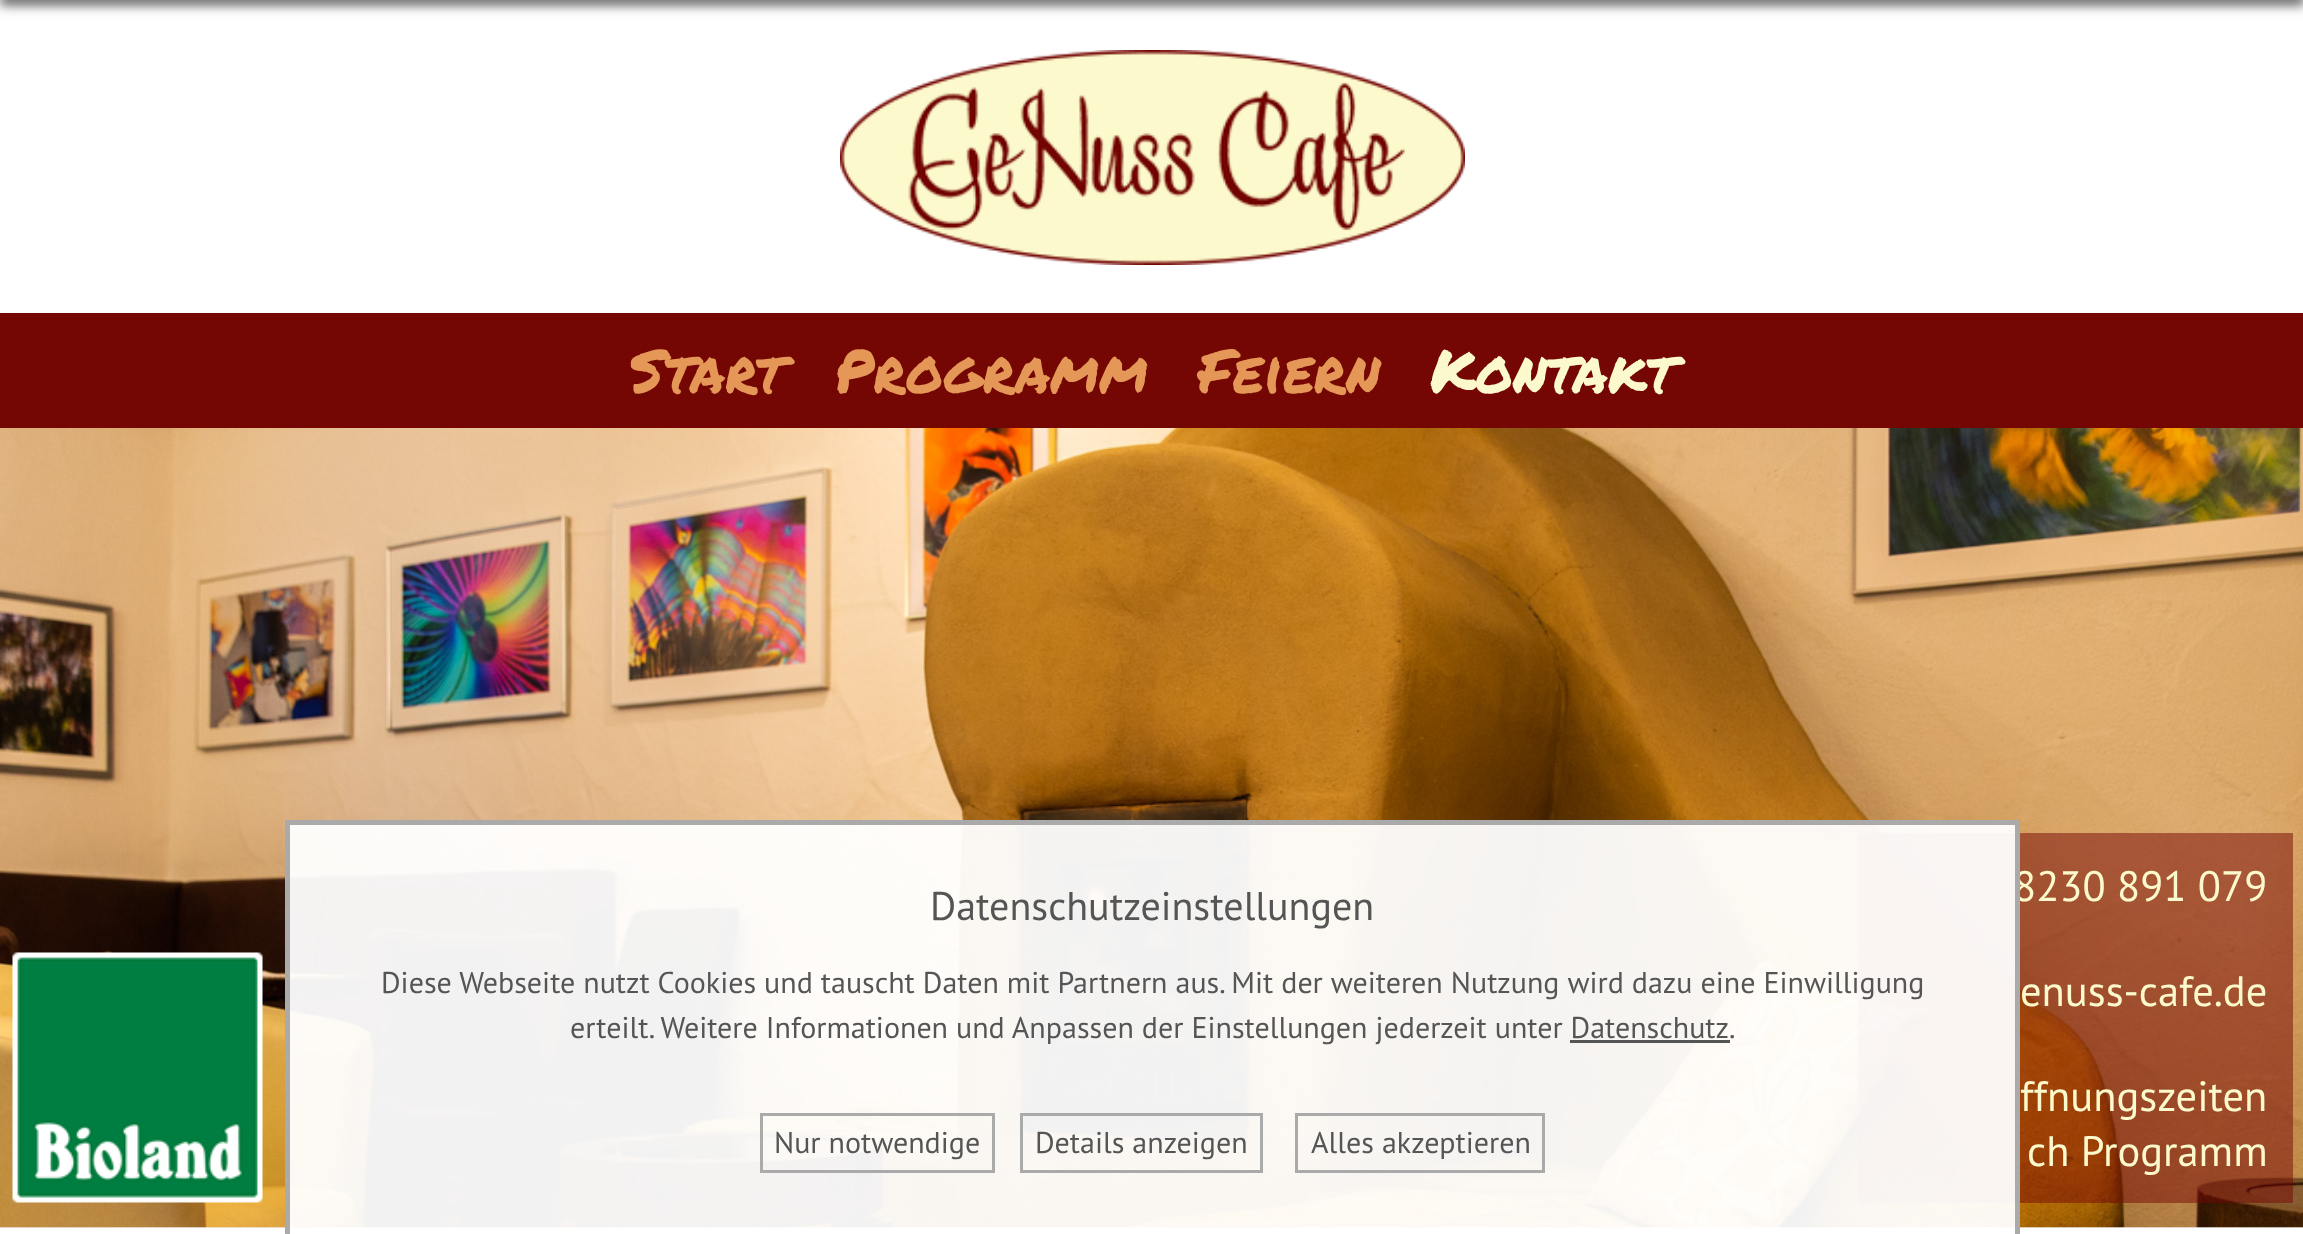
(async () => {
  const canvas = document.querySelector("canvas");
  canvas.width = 2303;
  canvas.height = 1234;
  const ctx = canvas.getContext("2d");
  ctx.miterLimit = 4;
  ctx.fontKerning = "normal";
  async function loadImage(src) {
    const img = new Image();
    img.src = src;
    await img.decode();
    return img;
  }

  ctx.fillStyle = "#ffffff";
  ctx.fillRect(0, 0, 2303, 1234);
  ctx.fillStyle = "#555555";
  ctx.filter = "blur(6px)";
  ctx.beginPath();
  ctx.rect(0, -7, 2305, 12);
  ctx.fill();
  ctx.filter = "none";
  ctx.drawImage(await loadImage("img/1.png"), 840, 50, 625, 215);
  ctx.fillStyle = "#740604";
  ctx.fillRect(0, 313, 2303, 115);
  ctx.fillStyle = "#efefef";
  ctx.fillRect(0, 1227, 2303, 1);
  ctx.drawImage(await loadImage("img/2.png"), 0, 428, 2303, 800);
  for (const [x, y, w, h, color] of [
    [1858, 833, 435, 370, "rgba(116, 6, 4, 0.5)"],
    [290, 825, 1725, 403, "rgba(255, 255, 255, 0.95)"],
    [285, 820, 1735, 5, "#aaaaaa"],
    [285, 820, 5, 414, "#aaaaaa"],
    [1570, 1040, 160, 3, "#555555"],
  ]) {
    ctx.fillStyle = color;
    ctx.fillRect(x, y, w, h);
  }
  ctx.strokeStyle = "#aaaaaa";
  ctx.lineWidth = 3;
  ctx.strokeRect(761.5, 1114.5, 232, 57);
  ctx.strokeRect(1021.5, 1114.5, 240, 57);
  ctx.strokeRect(1296.5, 1114.5, 247, 57);
  ctx.drawImage(await loadImage("img/3.png"), 12, 952, 251, 251);
  ctx.font = "60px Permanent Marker";
  ctx.fillStyle = "#e49756";
  for (const [text, x, y] of [
    ["Start", 630, 393],
    ["Programm", 835, 393],
    ["Feiern", 1198, 393],
  ]) {
    ctx.fillText(text, x, y);
  }
  ctx.fillStyle = "#fcfacc";
  ctx.fillText("Kontakt", 1430, 393);
  ctx.font = "40px PT Sans";
  ctx.fillStyle = "#555555";
  ctx.fillText("Datenschutzeinstellungen", 930, 920);
  ctx.font = "30px PT Sans";
  for (const [text, x, y] of [
    ["Diese Webseite nutzt Cookies und tauscht Daten mit Partnern aus. Mit der weiteren Nutzung wird dazu eine Einwilligung", 381, 993],
    ["erteilt. Weitere Informationen und Anpassen der Einstellungen jederzeit unter Datenschutz.", 570, 1038],
    ["Nur notwendige", 774, 1153],
    ["Details anzeigen", 1035, 1153],
    ["Alles akzeptieren", 1311, 1153],
  ]) {
    ctx.fillText(text, x, y);
  }
  ctx.font = "42.5px PT Sans";
  ctx.fillStyle = "#fcfacc";
  ctx.fillText("8230 891 079", 2013, 901);
  ctx.fillStyle = "#aaaaaa";
  ctx.fillRect(2015, 820, 5, 414);
  ctx.fillStyle = "#fcfacc";
  for (const [text, x, y] of [
    ["enuss-cafe.de", 2020, 1006],
    ["ffnungszeiten", 2020, 1111],
    ["ch Programm", 2027, 1166],
  ]) {
    ctx.fillText(text, x, y);
  }
})();
